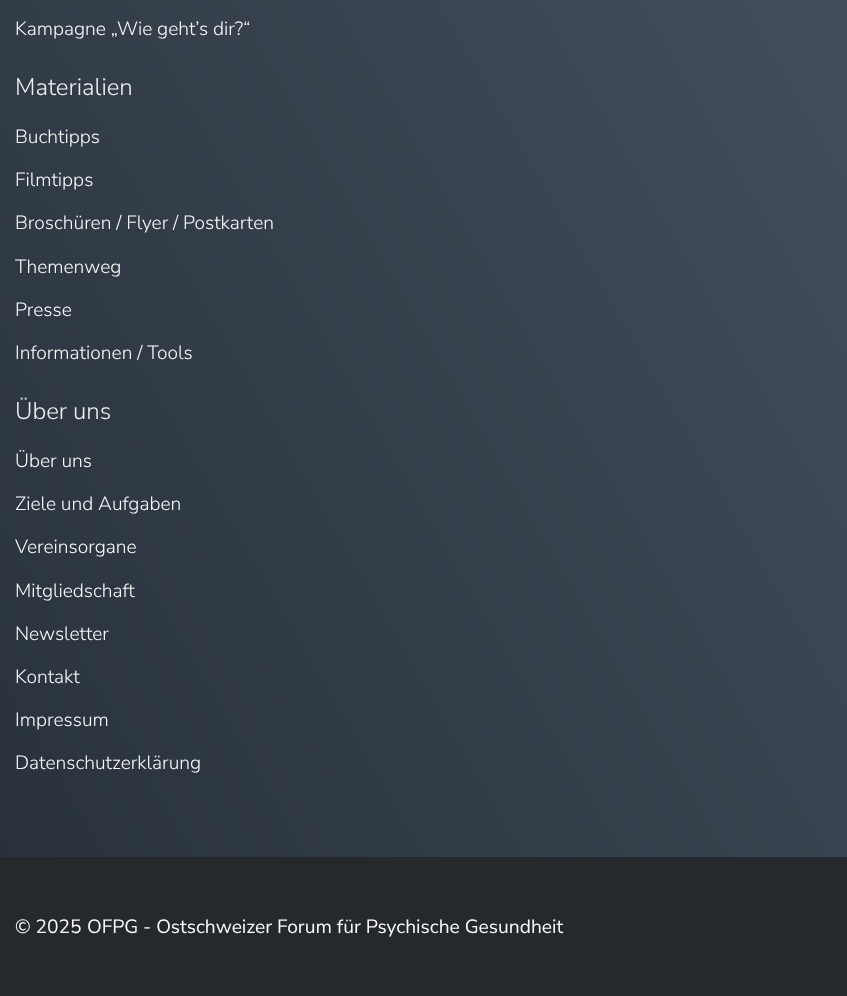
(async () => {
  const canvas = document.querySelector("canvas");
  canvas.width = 847;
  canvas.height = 996;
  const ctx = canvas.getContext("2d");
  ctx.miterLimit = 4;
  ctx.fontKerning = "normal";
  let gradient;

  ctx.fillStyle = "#ffffff";
  ctx.fillRect(0, 0, 847, 996);
  gradient = ctx.createLinearGradient(-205, 502, 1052, -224);
  gradient.addColorStop(0, "#29323c");
  gradient.addColorStop(1, "#485563");
  ctx.fillStyle = gradient;
  ctx.fillRect(0, 0, 847, 857);
  ctx.fillStyle = "#25292b";
  ctx.fillRect(0, 857, 847, 139);
  ctx.font = "300 19.2px Nunito Sans";
  ctx.fillStyle = "#fafafa";
  ctx.fillText("Kampagne „Wie geht’s dir?“", 15, 35);
  ctx.font = "300 24px Nunito Sans";
  ctx.fillStyle = "#f0f0f0";
  ctx.fillText("Materialien", 15, 95);
  ctx.font = "300 19.2px Nunito Sans";
  ctx.fillStyle = "#fafafa";
  for (const [text, x, y] of [
    ["Buchtipps", 15, 143],
    ["Filmtipps", 15, 186],
    ["Broschüren / Flyer / Postkarten", 15, 229],
    ["Themenweg", 15, 273],
    ["Presse", 15, 316],
    ["Informationen / Tools", 15, 359],
  ]) {
    ctx.fillText(text, x, y);
  }
  ctx.font = "300 24px Nunito Sans";
  ctx.fillStyle = "#f0f0f0";
  ctx.fillText("Über uns", 15, 419);
  ctx.font = "300 19.2px Nunito Sans";
  ctx.fillStyle = "#fafafa";
  for (const [text, x, y] of [
    ["Über uns", 15, 467],
    ["Ziele und Aufgaben", 15, 510],
    ["Vereinsorgane", 15, 553],
    ["Mitgliedschaft", 15, 597],
    ["Newsletter", 15, 640],
    ["Kontakt", 15, 683],
    ["Impressum", 15, 726],
    ["Datenschutzerklärung", 15, 769],
  ]) {
    ctx.fillText(text, x, y);
  }
  ctx.font = "19.2px Nunito Sans";
  ctx.fillText("© 2025", 15, 933);
  ctx.fillText("OFPG - Ostschweizer Forum für Psychische Gesundheit", 87, 933);
})();
